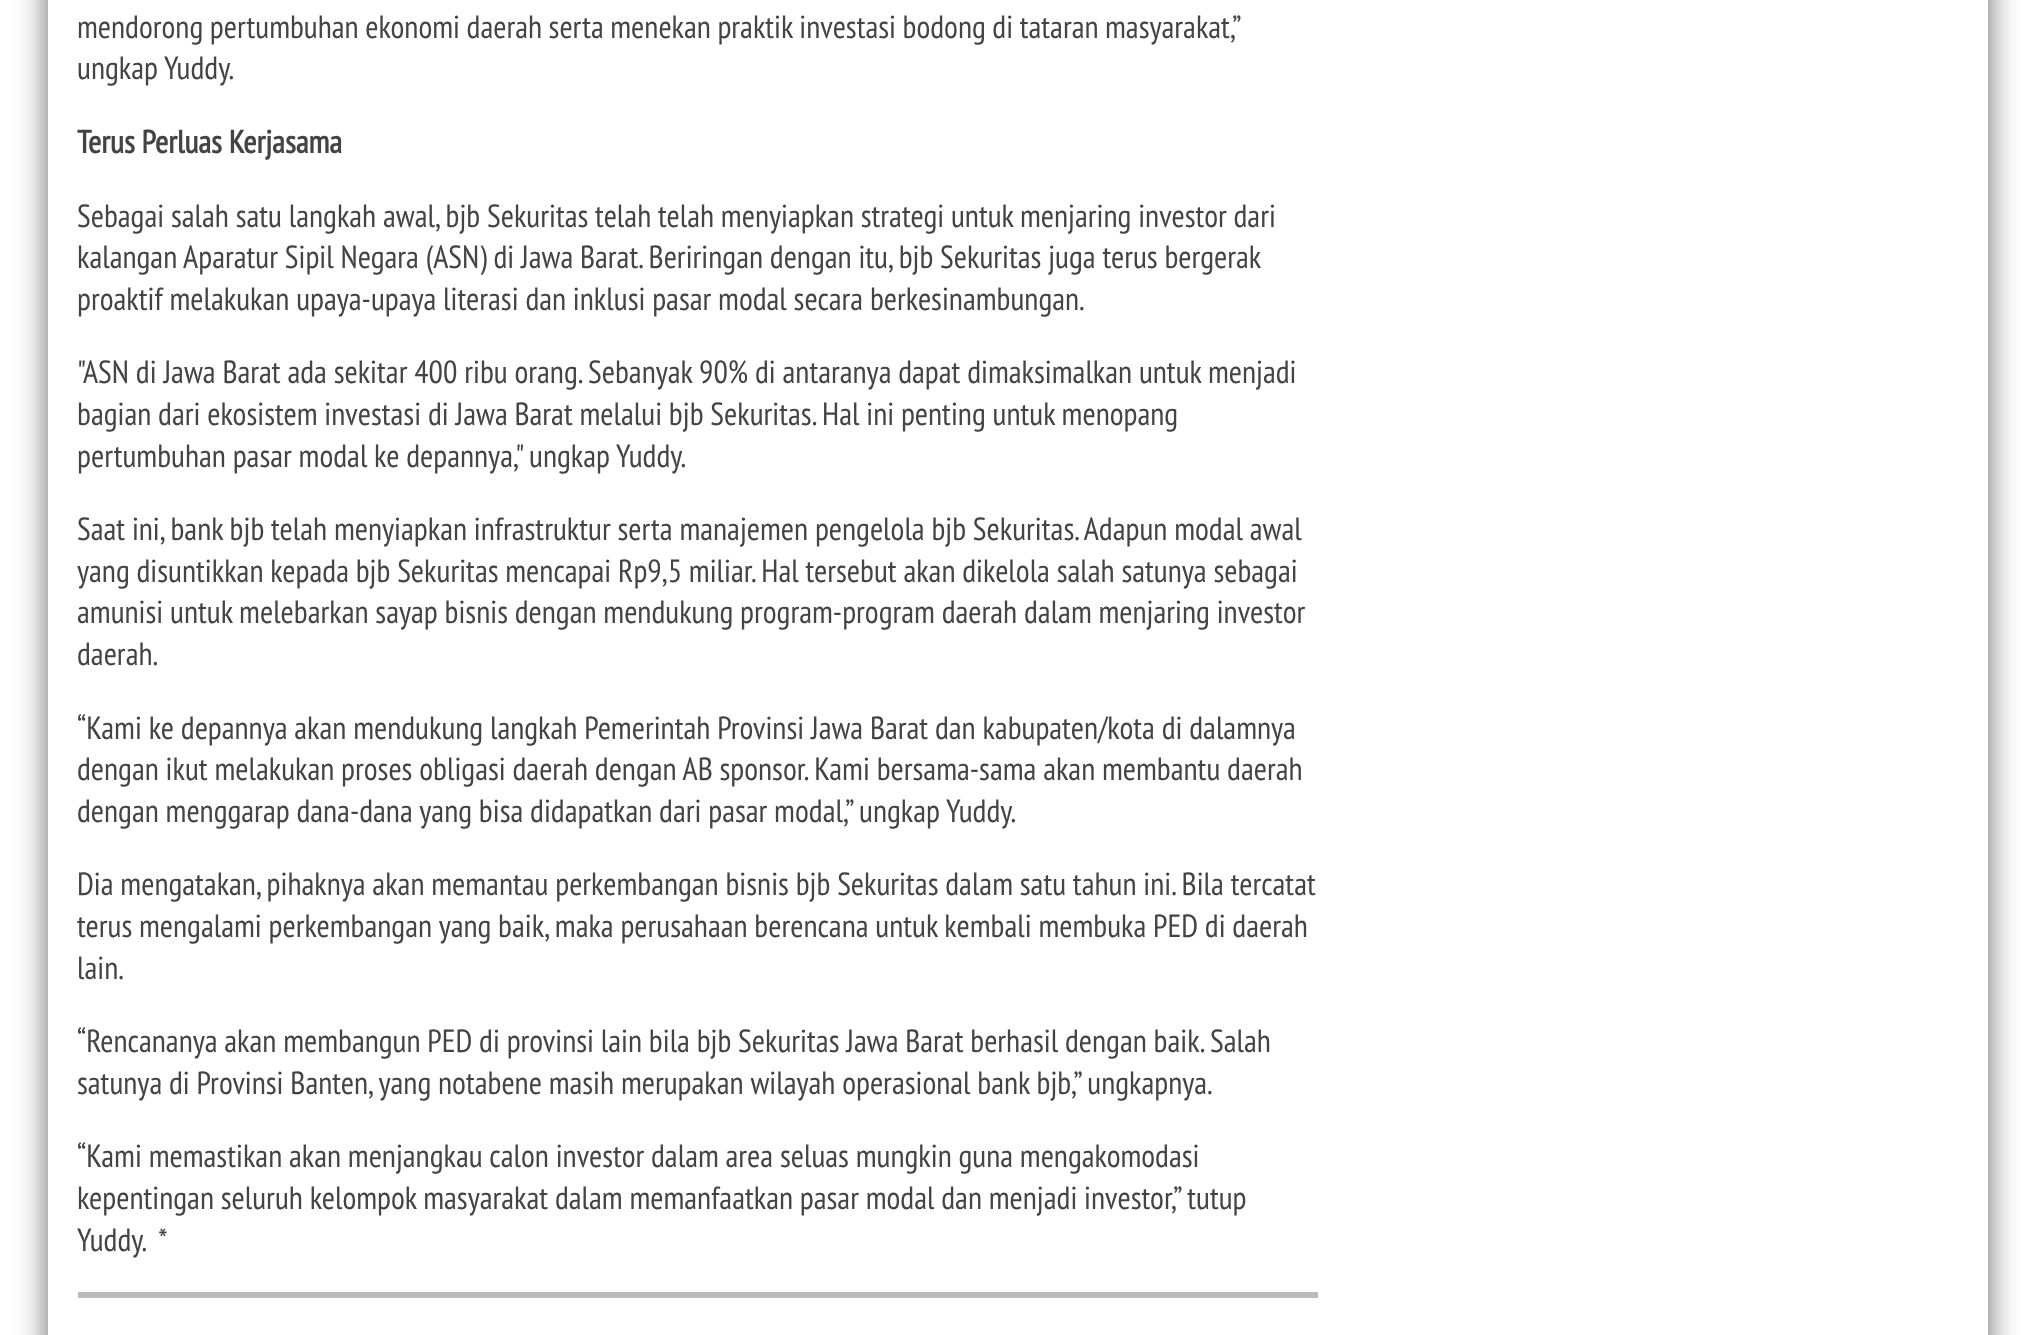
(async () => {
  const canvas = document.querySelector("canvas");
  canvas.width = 2033;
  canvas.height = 1335;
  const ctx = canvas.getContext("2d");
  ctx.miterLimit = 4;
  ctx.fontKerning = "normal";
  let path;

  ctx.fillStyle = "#ffffff";
  ctx.fillRect(0, 0, 2033, 1335);
  ctx.save();
  path = new Path2D("M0 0H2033V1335H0ZM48-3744H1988V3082H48Z");
  ctx.clip(path, "evenodd");
  ctx.fillStyle = "#777777";
  ctx.filter = "blur(15px)";
  ctx.beginPath();
  ctx.rect(46, -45, 1944, 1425);
  ctx.fill();
  ctx.filter = "none";
  ctx.restore();
  ctx.fillStyle = "#bbbbbb";
  ctx.fillRect(78, 1292, 1240, 6);
  ctx.wordSpacing = "-0.25px";
  ctx.font = "32px PT Sans Narrow";
  ctx.fillStyle = "#444444";
  ctx.fillText("mendorong pertumbuhan ekonomi daerah serta menekan praktik investasi bodong di tataran masyarakat,”", 77, 38);
  ctx.wordSpacing = "0px";
  ctx.fillText("ungkap Yuddy.", 77, 79);
  ctx.font = "bold 32px PT Sans Narrow";
  ctx.fillText("Terus Perluas Kerjasama", 77, 153);
  ctx.font = "32px PT Sans Narrow";
  for (const [text, x, y] of [
    ["Sebagai salah satu langkah awal, bjb Sekuritas telah telah menyiapkan strategi untuk menjaring investor dari", 77, 227],
    ["kalangan Aparatur Sipil Negara (ASN) di Jawa Barat. Beriringan dengan itu, bjb Sekuritas juga terus bergerak", 77, 268],
    ["proaktif melakukan upaya-upaya literasi dan inklusi pasar modal secara berkesinambungan.", 77, 310],
    ["\"ASN di Jawa Barat ada sekitar 400 ribu orang. Sebanyak 90% di antaranya dapat dimaksimalkan untuk menjadi", 77, 383],
    ["bagian dari ekosistem investasi di Jawa Barat melalui bjb Sekuritas. Hal ini penting untuk menopang", 77, 425],
    ["pertumbuhan pasar modal ke depannya,\" ungkap Yuddy.", 77, 467],
    ["Saat ini, bank bjb telah menyiapkan infrastruktur serta manajemen pengelola bjb Sekuritas. Adapun modal awal", 77, 540],
    ["yang disuntikkan kepada bjb Sekuritas mencapai Rp9,5 miliar. Hal tersebut akan dikelola salah satunya sebagai", 77, 582],
    ["amunisi untuk melebarkan sayap bisnis dengan mendukung program-program daerah dalam menjaring investor", 77, 623],
    ["daerah.", 77, 665],
    ["“Kami ke depannya akan mendukung langkah Pemerintah Provinsi Jawa Barat dan kabupaten/kota di dalamnya", 77, 739],
    ["dengan ikut melakukan proses obligasi daerah dengan AB sponsor. Kami bersama-sama akan membantu daerah", 77, 780],
    ["dengan menggarap dana-dana yang bisa didapatkan dari pasar modal,” ungkap Yuddy.", 77, 822],
    ["Dia mengatakan, pihaknya akan memantau perkembangan bisnis bjb Sekuritas dalam satu tahun ini. Bila tercatat", 77, 895],
    ["terus mengalami perkembangan yang baik, maka perusahaan berencana untuk kembali membuka PED di daerah", 77, 937],
    ["lain.", 77, 979],
    ["“Rencananya akan membangun PED di provinsi lain bila bjb Sekuritas Jawa Barat berhasil dengan baik. Salah", 77, 1052],
    ["satunya di Provinsi Banten, yang notabene masih merupakan wilayah operasional bank bjb,” ungkapnya.", 77, 1094],
    ["“Kami memastikan akan menjangkau calon investor dalam area seluas mungkin guna mengakomodasi", 77, 1167],
    ["kepentingan seluruh kelompok masyarakat dalam memanfaatkan pasar modal dan menjadi investor,” tutup", 77, 1209],
    ["Yuddy.  *", 77, 1251],
  ]) {
    ctx.fillText(text, x, y);
  }
})();
